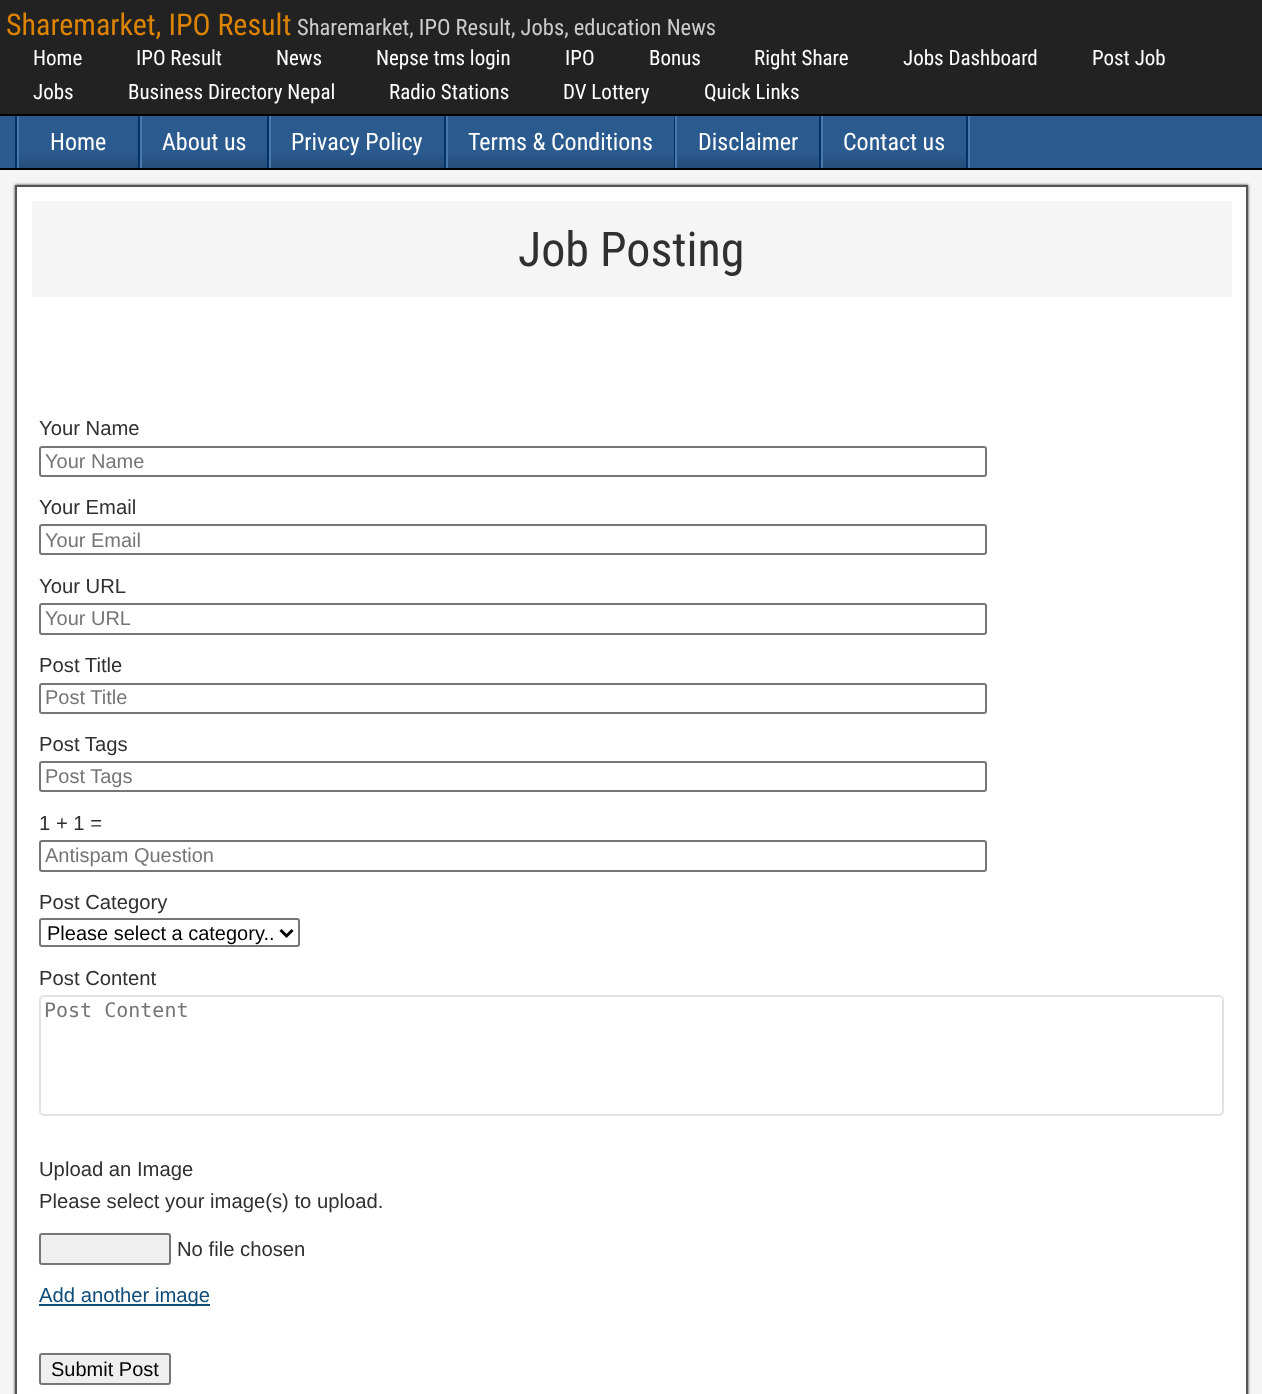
(async () => {
  const canvas = document.querySelector("canvas");
  canvas.width = 1262;
  canvas.height = 1394;
  const ctx = canvas.getContext("2d");
  ctx.miterLimit = 4;
  ctx.fontKerning = "normal";
  let gradient, path;

  ctx.fillStyle = "#222222";
  ctx.fillRect(0, 0, 1262, 1394);
  for (const [x, y, w, h, color] of [
    [0, 114, 1262, 2, "#000000"],
    [0, 116, 1262, 52, "#2a5a8e"],
    [0, 168, 1262, 2, "#000000"],
    [968, 116, 2, 52, "#4878ac"],
    [15, 116, 2, 52, "#023266"],
  ]) {
    ctx.fillStyle = color;
    ctx.fillRect(x, y, w, h);
  }
  gradient = ctx.createLinearGradient(78, 116, 78, 168);
  gradient.addColorStop(0.7, "#2a5a8e");
  gradient.addColorStop(1, "#244d79");
  ctx.fillStyle = gradient;
  ctx.fillRect(19, 154, 119, 14);
  ctx.fillStyle = "#023266";
  ctx.fillRect(138, 116, 2, 52);
  ctx.fillStyle = "#4878ac";
  ctx.fillRect(17, 116, 2, 52);
  gradient = ctx.createLinearGradient(204, 116, 204, 168);
  gradient.addColorStop(0.7, "#2a5a8e");
  gradient.addColorStop(1, "#244d79");
  ctx.fillStyle = gradient;
  ctx.fillRect(142, 154, 125, 14);
  ctx.fillStyle = "#023266";
  ctx.fillRect(267, 116, 2, 52);
  ctx.fillStyle = "#4878ac";
  ctx.fillRect(140, 116, 2, 52);
  gradient = ctx.createLinearGradient(357, 116, 357, 168);
  gradient.addColorStop(0.7, "#2a5a8e");
  gradient.addColorStop(1, "#244d79");
  ctx.fillStyle = gradient;
  ctx.fillRect(271, 154, 173, 14);
  ctx.fillStyle = "#023266";
  ctx.fillRect(444, 116, 2, 52);
  ctx.fillStyle = "#4878ac";
  ctx.fillRect(269, 116, 2, 52);
  gradient = ctx.createLinearGradient(560, 115, 560, 168);
  gradient.addColorStop(0.7, "#2a5a8e");
  gradient.addColorStop(1, "#244d79");
  ctx.fillStyle = gradient;
  ctx.fillRect(448, 154, 226, 14);
  ctx.fillStyle = "#023266";
  ctx.fillRect(674, 116, 1, 52);
  ctx.fillStyle = "#4878ac";
  ctx.fillRect(446, 116, 2, 52);
  gradient = ctx.createLinearGradient(748, 116, 748, 168);
  gradient.addColorStop(0.7, "rgba(0, 0, 0, 0)");
  gradient.addColorStop(1, "rgba(0, 0, 0, 0.15)");
  ctx.fillStyle = gradient;
  ctx.fillRect(677, 155, 142, 13);
  ctx.fillStyle = "#023266";
  ctx.fillRect(819, 116, 2, 52);
  ctx.fillStyle = "#4878ac";
  ctx.fillRect(675, 116, 2, 52);
  gradient = ctx.createLinearGradient(894, 116, 894, 168);
  gradient.addColorStop(0.7, "#2a5a8e");
  gradient.addColorStop(1, "#244d79");
  ctx.fillStyle = gradient;
  ctx.fillRect(823, 154, 143, 14);
  for (const [x, y, w, h, color] of [
    [966, 116, 2, 52, "#023266"],
    [821, 116, 2, 52, "#4878ac"],
    [0, 170, 1262, 1224, "#f5f5f5"],
  ]) {
    ctx.fillStyle = color;
    ctx.fillRect(x, y, w, h);
  }
  ctx.fillStyle = "#333333";
  ctx.filter = "blur(1.5px)";
  ctx.beginPath();
  ctx.rect(15, 185, 1233, 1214);
  ctx.fill();
  ctx.filter = "none";
  ctx.fillStyle = "#ffffff";
  ctx.beginPath();
  ctx.rect(16, 186, 1231, 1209);
  ctx.fill();
  ctx.strokeStyle = "#555555";
  ctx.lineWidth = 2;
  ctx.stroke();
  ctx.fillStyle = "#f5f5f5";
  ctx.fillRect(32, 201, 1200, 96);
  ctx.beginPath();
  ctx.roundRect(40, 447, 946, 29, 2);
  ctx.strokeStyle = "#767676";
  ctx.stroke();
  ctx.beginPath();
  ctx.roundRect(40, 525, 946, 29, 2);
  ctx.stroke();
  ctx.beginPath();
  ctx.roundRect(40, 604, 946, 30, 2);
  ctx.stroke();
  ctx.beginPath();
  ctx.roundRect(40, 684, 946, 29, 2);
  ctx.stroke();
  ctx.beginPath();
  ctx.roundRect(40, 762, 946, 29, 2);
  ctx.stroke();
  ctx.beginPath();
  ctx.roundRect(40, 841, 946, 30, 2);
  ctx.stroke();
  ctx.beginPath();
  ctx.roundRect(40, 919, 259, 27, 2);
  ctx.stroke();
  path = new Path2D("M280.5 930L286.5 936L292.5 930");
  ctx.strokeStyle = "#000000";
  ctx.lineWidth = 3;
  ctx.stroke(path);
  ctx.beginPath();
  ctx.roundRect(40, 996, 1183, 119, 4);
  ctx.strokeStyle = "#e2e2e2";
  ctx.lineWidth = 2;
  ctx.stroke();
  ctx.fillStyle = "#efefef";
  ctx.beginPath();
  ctx.roundRect(40, 1234, 130, 30, 2);
  ctx.fill();
  ctx.strokeStyle = "#767676";
  ctx.stroke();
  ctx.fillStyle = "#0e4d7a";
  ctx.fillRect(39, 1304, 171, 2);
  ctx.fillStyle = "#efefef";
  ctx.beginPath();
  ctx.roundRect(40, 1354, 130, 30, 2);
  ctx.fill();
  ctx.stroke();
  ctx.font = "30px Roboto Condensed";
  ctx.fillStyle = "#dc8300";
  ctx.fillText("Sharemarket, IPO Result", 6, 35);
  ctx.font = "22.5px Roboto Condensed";
  ctx.fillStyle = "#cccccc";
  ctx.fillText("Sharemarket, IPO Result, Jobs, education News", 297, 35);
  ctx.font = "21px Roboto Condensed";
  ctx.fillStyle = "#ffffff";
  for (const [text, x, y] of [
    ["Home", 33, 65],
    ["IPO Result", 136, 65],
    ["News", 276, 65],
    ["Nepse tms login", 376, 65],
    ["IPO", 565, 65],
    ["Bonus", 649, 65],
    ["Right Share", 754, 65],
    ["Jobs Dashboard", 903, 65],
    ["Post Job", 1092, 65],
    ["Jobs", 33, 99],
    ["Business Directory Nepal", 128, 99],
    ["Radio Stations", 389, 99],
    ["DV Lottery", 563, 99],
    ["Quick Links", 704, 99],
  ]) {
    ctx.fillText(text, x, y);
  }
  ctx.font = "24px Roboto Condensed";
  for (const [text, x, y] of [
    ["Home", 50, 150],
    ["About us", 162, 150],
    ["Privacy Policy", 291, 150],
    ["Terms & Conditions", 468, 150],
    ["Disclaimer", 698, 150],
    ["Contact us", 843, 150],
  ]) {
    ctx.fillText(text, x, y);
  }
  ctx.font = "48px Roboto Condensed";
  ctx.fillStyle = "#303030";
  ctx.fillText("Job Posting", 518, 266);
  ctx.font = "20.25px Liberation Sans";
  ctx.fillText("Your Name", 39, 435);
  ctx.font = "20px Liberation Sans";
  ctx.fillStyle = "#757575";
  ctx.fillText("Your Name", 45, 468);
  ctx.font = "20.25px Liberation Sans";
  ctx.fillStyle = "#303030";
  ctx.fillText("Your Email", 39, 514);
  ctx.font = "20px Liberation Sans";
  ctx.fillStyle = "#757575";
  ctx.fillText("Your Email", 45, 547);
  ctx.font = "20.25px Liberation Sans";
  ctx.fillStyle = "#303030";
  ctx.fillText("Your URL", 39, 593);
  ctx.font = "20px Liberation Sans";
  ctx.fillStyle = "#757575";
  ctx.fillText("Your URL", 45, 625);
  ctx.font = "20.25px Liberation Sans";
  ctx.fillStyle = "#303030";
  ctx.fillText("Post Title", 39, 672);
  ctx.font = "20px Liberation Sans";
  ctx.fillStyle = "#757575";
  ctx.fillText("Post Title", 45, 704);
  ctx.font = "20.25px Liberation Sans";
  ctx.fillStyle = "#303030";
  ctx.fillText("Post Tags", 39, 751);
  ctx.font = "20px Liberation Sans";
  ctx.fillStyle = "#757575";
  ctx.fillText("Post Tags", 45, 783);
  ctx.font = "20.25px Liberation Sans";
  ctx.fillStyle = "#303030";
  ctx.fillText("1 + 1 =", 39, 830);
  ctx.font = "20px Liberation Sans";
  ctx.fillStyle = "#757575";
  ctx.fillText("Antispam Question", 45, 862);
  ctx.font = "20.25px Liberation Sans";
  ctx.fillStyle = "#303030";
  ctx.fillText("Post Category", 39, 909);
  ctx.font = "20px Liberation Sans";
  ctx.fillStyle = "#000000";
  ctx.fillText("Please select a category..", 47, 940);
  ctx.font = "20.25px Liberation Sans";
  ctx.fillStyle = "#303030";
  ctx.fillText("Post Content", 39, 985);
  ctx.font = "20px DejaVu Sans Mono";
  ctx.fillStyle = "#757575";
  ctx.fillText("Post Content", 44, 1017);
  ctx.font = "20.25px Liberation Sans";
  ctx.fillStyle = "#303030";
  for (const [text, x, y] of [
    ["Upload an Image", 39, 1176],
    ["Please select your image(s) to upload.", 39, 1208],
    ["No file chosen", 177, 1256],
  ]) {
    ctx.fillText(text, x, y);
  }
  ctx.fillStyle = "#0e4d7a";
  ctx.fillText("Add another image", 39, 1302);
  ctx.font = "20px Liberation Sans";
  ctx.fillStyle = "#000000";
  ctx.fillText("Submit Post", 51, 1376);
})();
